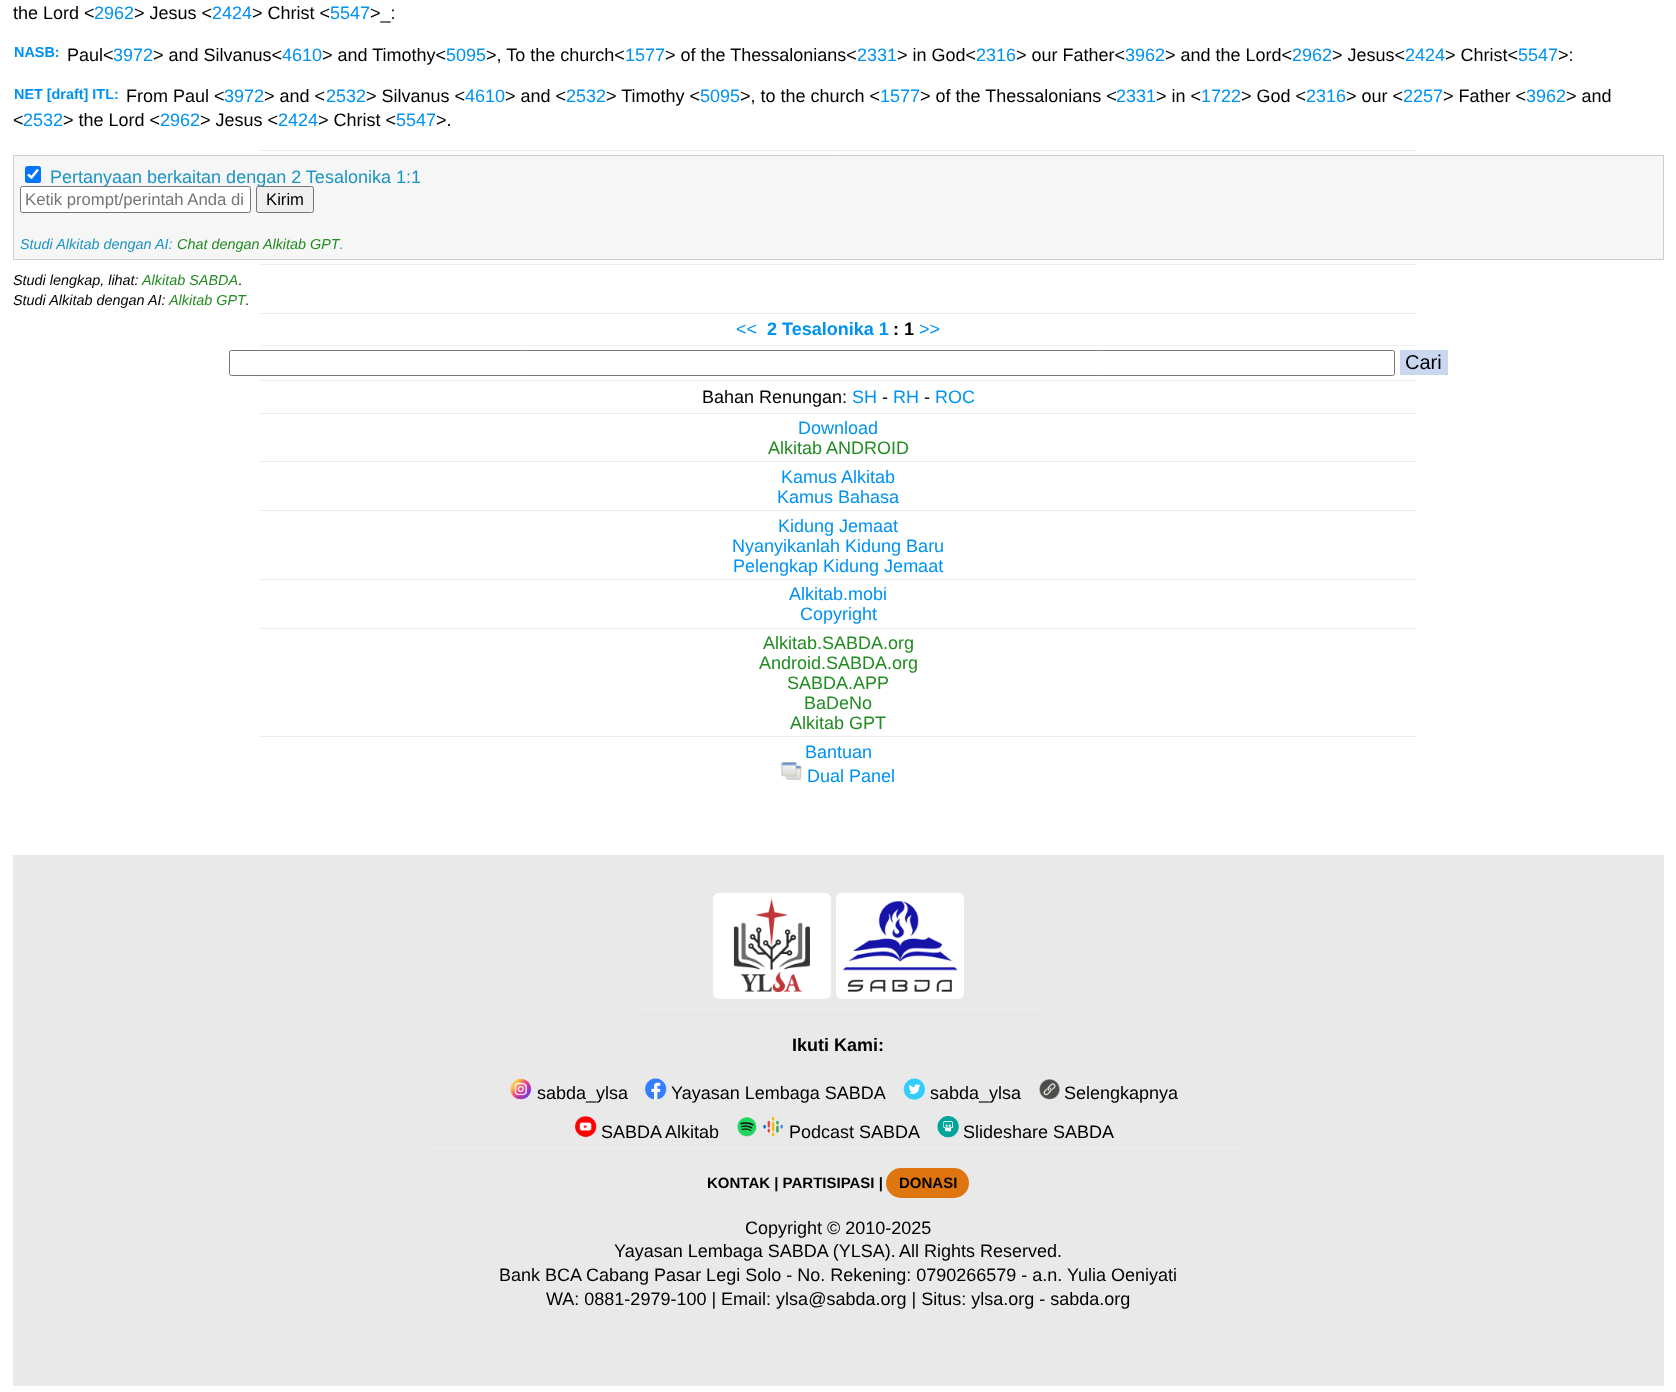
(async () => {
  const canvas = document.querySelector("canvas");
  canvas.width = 1676;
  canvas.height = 1392;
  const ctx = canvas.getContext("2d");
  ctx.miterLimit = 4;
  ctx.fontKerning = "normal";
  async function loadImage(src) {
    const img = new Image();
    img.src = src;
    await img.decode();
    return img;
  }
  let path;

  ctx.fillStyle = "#ffffff";
  ctx.fillRect(0, 0, 1676, 1392);
  ctx.fillStyle = "#eeeeee";
  ctx.fillRect(260, 150, 1156, 1);
  ctx.fillStyle = "#f6f6f6";
  ctx.beginPath();
  ctx.rect(13.5, 155.5, 1650, 104);
  ctx.fill();
  ctx.strokeStyle = "#cccccc";
  ctx.stroke();
  ctx.fillStyle = "#0075ff";
  ctx.beginPath();
  ctx.roundRect(25, 166, 16, 17, 2.5);
  ctx.fill();
  path = new Path2D("M28 174.5L31.5 177.5L38 169.5");
  ctx.strokeStyle = "#ffffff";
  ctx.lineWidth = 2.6;
  ctx.stroke(path);
  for (const [x, y, w, h, color] of [
    [260, 264, 1156, 1, "#eeeeee"],
    [260, 313, 1156, 1, "#eeeeee"],
    [260, 345, 1156, 1, "#eeeeee"],
  ]) {
    ctx.fillStyle = color;
    ctx.fillRect(x, y, w, h);
  }
  ctx.beginPath();
  ctx.roundRect(229.5, 350.5, 1165, 25, 2);
  ctx.strokeStyle = "#767676";
  ctx.lineWidth = 1;
  ctx.stroke();
  for (const [x, y, w, h, color] of [
    [1400, 350, 48, 25, "#c9d7f1"],
    [260, 380, 1156, 1, "#eeeeee"],
    [260, 413, 1156, 1, "#eeeeee"],
    [260, 461, 1156, 1, "#eeeeee"],
    [260, 510, 1156, 1, "#eeeeee"],
    [260, 579, 1156, 1, "#eeeeee"],
    [260, 628, 1156, 1, "#eeeeee"],
    [260, 736, 1156, 1, "#eeeeee"],
  ]) {
    ctx.fillStyle = color;
    ctx.fillRect(x, y, w, h);
  }
  ctx.drawImage(await loadImage("img/1.png"), 781, 762, 21, 18);
  ctx.fillStyle = "#e9e9e9";
  ctx.fillRect(13, 855, 1651, 531);
  ctx.fillStyle = "#ffffff";
  ctx.beginPath();
  ctx.roundRect(713, 893, 118, 106, 6);
  ctx.fill();
  ctx.beginPath();
  ctx.roundRect(836, 893, 128, 106, 6);
  ctx.fill();
  ctx.drawImage(await loadImage("img/2.png"), 733, 899, 77, 94);
  ctx.drawImage(await loadImage("img/3.png"), 842, 901, 116, 91);
  ctx.fillStyle = "#eeeeee";
  ctx.fillRect(1041, 1006, 1, 4);
  ctx.fillRect(634, 1009, 409, 1);
  ctx.drawImage(await loadImage("img/4.png"), 510, 1078, 22, 22);
  ctx.drawImage(await loadImage("img/5.png"), 645, 1078, 22, 22);
  ctx.drawImage(await loadImage("img/6.png"), 903, 1078, 22, 22);
  ctx.drawImage(await loadImage("img/7.png"), 1039, 1079, 21, 21);
  ctx.drawImage(await loadImage("img/8.png"), 575, 1116, 22, 22);
  ctx.drawImage(await loadImage("img/9.png"), 737, 1117, 20, 20);
  ctx.drawImage(await loadImage("img/10.png"), 763, 1116, 20, 21);
  ctx.drawImage(await loadImage("img/11.png"), 937, 1116, 22, 22);
  ctx.fillRect(1244, 1145, 1, 4);
  ctx.fillRect(431, 1148, 814, 1);
  ctx.fillStyle = "#df750f";
  ctx.beginPath();
  ctx.roundRect(886, 1168, 83, 30, 15);
  ctx.fill();
  ctx.font = "18px Liberation Sans";
  ctx.fillStyle = "#000000";
  ctx.fillText("the Lord <", 13, 19);
  ctx.fillStyle = "#0092f2";
  ctx.fillText("2962", 94, 19);
  ctx.fillStyle = "#000000";
  ctx.fillText("> Jesus <", 134, 19);
  ctx.fillStyle = "#0092f2";
  ctx.fillText("2424", 212, 19);
  ctx.fillStyle = "#000000";
  ctx.fillText("> Christ <", 252, 19);
  ctx.fillStyle = "#0092f2";
  ctx.fillText("5547", 330, 19);
  ctx.fillStyle = "#000000";
  ctx.fillText(">_:", 370, 19);
  ctx.font = "bold 14.4px Liberation Sans";
  ctx.fillStyle = "#0092f2";
  ctx.fillText("NASB:", 14, 57);
  ctx.font = "18px Liberation Sans";
  ctx.fillStyle = "#000000";
  ctx.fillText("Paul<", 67, 61);
  ctx.fillStyle = "#0092f2";
  ctx.fillText("3972", 113, 61);
  ctx.fillStyle = "#000000";
  ctx.fillText("> and Silvanus<", 153, 61);
  ctx.fillStyle = "#0092f2";
  ctx.fillText("4610", 282, 61);
  ctx.fillStyle = "#000000";
  ctx.fillText("> and Timothy<", 322, 61);
  ctx.fillStyle = "#0092f2";
  ctx.fillText("5095", 446, 61);
  ctx.fillStyle = "#000000";
  ctx.fillText(">, To the church<", 486, 61);
  ctx.fillStyle = "#0092f2";
  ctx.fillText("1577", 625, 61);
  ctx.fillStyle = "#000000";
  ctx.fillText("> of the Thessalonians<", 665, 61);
  ctx.fillStyle = "#0092f2";
  ctx.fillText("2331", 857, 61);
  ctx.fillStyle = "#000000";
  ctx.fillText("> in God<", 897, 61);
  ctx.fillStyle = "#0092f2";
  ctx.fillText("2316", 976, 61);
  ctx.fillStyle = "#000000";
  ctx.fillText("> our Father<", 1016, 61);
  ctx.fillStyle = "#0092f2";
  ctx.fillText("3962", 1125, 61);
  ctx.fillStyle = "#000000";
  ctx.fillText("> and the Lord<", 1165, 61);
  ctx.fillStyle = "#0092f2";
  ctx.fillText("2962", 1292, 61);
  ctx.fillStyle = "#000000";
  ctx.fillText("> Jesus<", 1332, 61);
  ctx.fillStyle = "#0092f2";
  ctx.fillText("2424", 1405, 61);
  ctx.fillStyle = "#000000";
  ctx.fillText("> Christ<", 1445, 61);
  ctx.fillStyle = "#0092f2";
  ctx.fillText("5547", 1518, 61);
  ctx.fillStyle = "#000000";
  ctx.fillText(">:", 1558, 61);
  ctx.font = "bold 14.4px Liberation Sans";
  ctx.fillStyle = "#0092f2";
  ctx.fillText("NET [draft] ITL:", 14, 99);
  ctx.font = "18px Liberation Sans";
  ctx.fillStyle = "#000000";
  ctx.fillText("From Paul <", 126, 102);
  ctx.fillStyle = "#0092f2";
  ctx.fillText("3972", 224, 102);
  ctx.fillStyle = "#000000";
  ctx.fillText("> and <", 264, 102);
  ctx.fillStyle = "#0092f2";
  ctx.fillText("2532", 326, 102);
  ctx.fillStyle = "#000000";
  ctx.fillText("> Silvanus <", 366, 102);
  ctx.fillStyle = "#0092f2";
  ctx.fillText("4610", 465, 102);
  ctx.fillStyle = "#000000";
  ctx.fillText("> and <", 505, 102);
  ctx.fillStyle = "#0092f2";
  ctx.fillText("2532", 566, 102);
  ctx.fillStyle = "#000000";
  ctx.fillText("> Timothy <", 606, 102);
  ctx.fillStyle = "#0092f2";
  ctx.fillText("5095", 700, 102);
  ctx.fillStyle = "#000000";
  ctx.fillText(">, to the church <", 740, 102);
  ctx.fillStyle = "#0092f2";
  ctx.fillText("1577", 880, 102);
  ctx.fillStyle = "#000000";
  ctx.fillText("> of the Thessalonians <", 920, 102);
  ctx.fillStyle = "#0092f2";
  ctx.fillText("2331", 1116, 102);
  ctx.fillStyle = "#000000";
  ctx.fillText("> in <", 1156, 102);
  ctx.fillStyle = "#0092f2";
  ctx.fillText("1722", 1201, 102);
  ctx.fillStyle = "#000000";
  ctx.fillText("> God <", 1241, 102);
  ctx.fillStyle = "#0092f2";
  ctx.fillText("2316", 1306, 102);
  ctx.fillStyle = "#000000";
  ctx.fillText("> our <", 1346, 102);
  ctx.fillStyle = "#0092f2";
  ctx.fillText("2257", 1403, 102);
  ctx.fillStyle = "#000000";
  ctx.fillText("> Father <", 1443, 102);
  ctx.fillStyle = "#0092f2";
  ctx.fillText("3962", 1526, 102);
  ctx.fillStyle = "#000000";
  ctx.fillText("> and", 1566, 102);
  ctx.fillText("<", 13, 126);
  ctx.fillStyle = "#0092f2";
  ctx.fillText("2532", 23, 126);
  ctx.fillStyle = "#000000";
  ctx.fillText("> the Lord <", 63, 126);
  ctx.fillStyle = "#0092f2";
  ctx.fillText("2962", 160, 126);
  ctx.fillStyle = "#000000";
  ctx.fillText("> Jesus <", 200, 126);
  ctx.fillStyle = "#0092f2";
  ctx.fillText("2424", 278, 126);
  ctx.fillStyle = "#000000";
  ctx.fillText("> Christ <", 318, 126);
  ctx.fillStyle = "#0092f2";
  ctx.fillText("5547", 396, 126);
  ctx.fillStyle = "#000000";
  ctx.fillText(">.", 436, 126);
  ctx.fillStyle = "#1c94c4";
  ctx.fillText("Pertanyaan berkaitan dengan 2 Tesalonika 1:1", 50, 183);
  ctx.fillStyle = "#ffffff";
  ctx.beginPath();
  ctx.roundRect(20.5, 186.5, 230, 26, 2);
  ctx.fill();
  ctx.stroke();
  ctx.font = "16.7px Liberation Sans";
  ctx.fillStyle = "#757575";
  ctx.fillText("Ketik prompt/perintah Anda di", 25, 205);
  ctx.fillStyle = "#efefef";
  ctx.beginPath();
  ctx.roundRect(256.5, 186.5, 57, 26, 2);
  ctx.fill();
  ctx.stroke();
  ctx.fillStyle = "#000000";
  ctx.fillText("Kirim", 266, 205);
  ctx.font = "italic 14.4px Liberation Sans";
  ctx.fillStyle = "#1c94c4";
  ctx.fillText("Studi Alkitab dengan AI:", 20, 249);
  ctx.fillStyle = "#228b22";
  ctx.fillText("Chat dengan Alkitab GPT", 177, 249);
  ctx.font = "14.4px Liberation Sans";
  ctx.fillStyle = "#1c94c4";
  ctx.fillText(".", 339, 249);
  ctx.font = "italic 14.4px Liberation Sans";
  ctx.fillStyle = "#000000";
  ctx.fillText("Studi lengkap, lihat:", 13, 285);
  ctx.fillStyle = "#228b22";
  ctx.fillText("Alkitab SABDA", 142, 285);
  ctx.font = "14.4px Liberation Sans";
  ctx.fillStyle = "#000000";
  ctx.fillText(".", 238, 285);
  ctx.font = "italic 14.4px Liberation Sans";
  ctx.fillText("Studi Alkitab dengan AI:", 13, 305);
  ctx.fillStyle = "#228b22";
  ctx.fillText("Alkitab GPT", 169, 305);
  ctx.font = "14.4px Liberation Sans";
  ctx.fillStyle = "#000000";
  ctx.fillText(".", 245, 305);
  ctx.font = "18px Liberation Sans";
  ctx.fillStyle = "#0092f2";
  ctx.fillText("<<", 736, 335);
  ctx.font = "bold 18px Liberation Sans";
  ctx.fillText("2 Tesalonika 1", 767, 335);
  ctx.fillStyle = "#000000";
  ctx.fillText(": 1", 893, 335);
  ctx.font = "18px Liberation Sans";
  ctx.fillStyle = "#0092f2";
  ctx.fillText(">>", 919, 335);
  ctx.font = "20px Liberation Sans";
  ctx.fillStyle = "#000000";
  ctx.fillText("Cari", 1405, 369);
  ctx.font = "18px Liberation Sans";
  ctx.fillText("Bahan Renungan:", 702, 403);
  ctx.fillStyle = "#0092f2";
  ctx.fillText("SH", 852, 403);
  ctx.fillStyle = "#000000";
  ctx.fillText("-", 882, 403);
  ctx.fillStyle = "#0092f2";
  ctx.fillText("RH", 893, 403);
  ctx.fillStyle = "#000000";
  ctx.fillText("-", 924, 403);
  ctx.fillStyle = "#0092f2";
  ctx.fillText("ROC", 935, 403);
  ctx.fillText("Download", 798, 434);
  ctx.fillStyle = "#228b22";
  ctx.fillText("Alkitab ANDROID", 768, 454);
  ctx.fillStyle = "#0092f2";
  for (const [text, x, y] of [
    ["Kamus Alkitab", 781, 483],
    ["Kamus Bahasa", 777, 503],
    ["Kidung Jemaat", 778, 532],
    ["Nyanyikanlah Kidung Baru", 732, 552],
    ["Pelengkap Kidung Jemaat", 733, 572],
    ["Alkitab.mobi", 789, 600],
    ["Copyright", 800, 620],
  ]) {
    ctx.fillText(text, x, y);
  }
  ctx.fillStyle = "#228b22";
  for (const [text, x, y] of [
    ["Alkitab.SABDA.org", 763, 649],
    ["Android.SABDA.org", 759, 669],
    ["SABDA.APP", 787, 689],
    ["BaDeNo", 804, 709],
    ["Alkitab GPT", 790, 729],
  ]) {
    ctx.fillText(text, x, y);
  }
  ctx.fillStyle = "#0092f2";
  ctx.fillText("Bantuan", 805, 758);
  ctx.fillText("Dual Panel", 807, 782);
  ctx.font = "bold 18px Liberation Sans";
  ctx.fillStyle = "#000000";
  ctx.fillText("Ikuti Kami:", 792, 1051);
  ctx.font = "18px Liberation Sans";
  for (const [text, x, y] of [
    ["sabda_ylsa", 537, 1099],
    ["Yayasan Lembaga SABDA", 671, 1099],
    ["sabda_ylsa", 930, 1099],
    ["Selengkapnya", 1064, 1099],
    ["SABDA Alkitab", 601, 1138],
    ["Podcast SABDA", 789, 1138],
    ["Slideshare SABDA", 963, 1138],
  ]) {
    ctx.fillText(text, x, y);
  }
  ctx.font = "bold 15px Liberation Sans";
  ctx.fillText("KONTAK | PARTISIPASI |", 707, 1188);
  ctx.fillText("DONASI", 899, 1188);
  ctx.font = "18px Liberation Sans";
  for (const [text, x, y] of [
    ["Copyright © 2010-2025", 745, 1234],
    ["Yayasan Lembaga SABDA (YLSA).", 614, 1257],
    ["All Rights Reserved.", 899, 1257],
    ["Bank BCA Cabang Pasar Legi Solo - No. Rekening: 0790266579 - a.n. Yulia Oeniyati", 499, 1281],
    ["WA: 0881-2979-100 | Email: ylsa@sabda.org | Situs: ylsa.org - sabda.org", 546, 1305],
  ]) {
    ctx.fillText(text, x, y);
  }
})();
